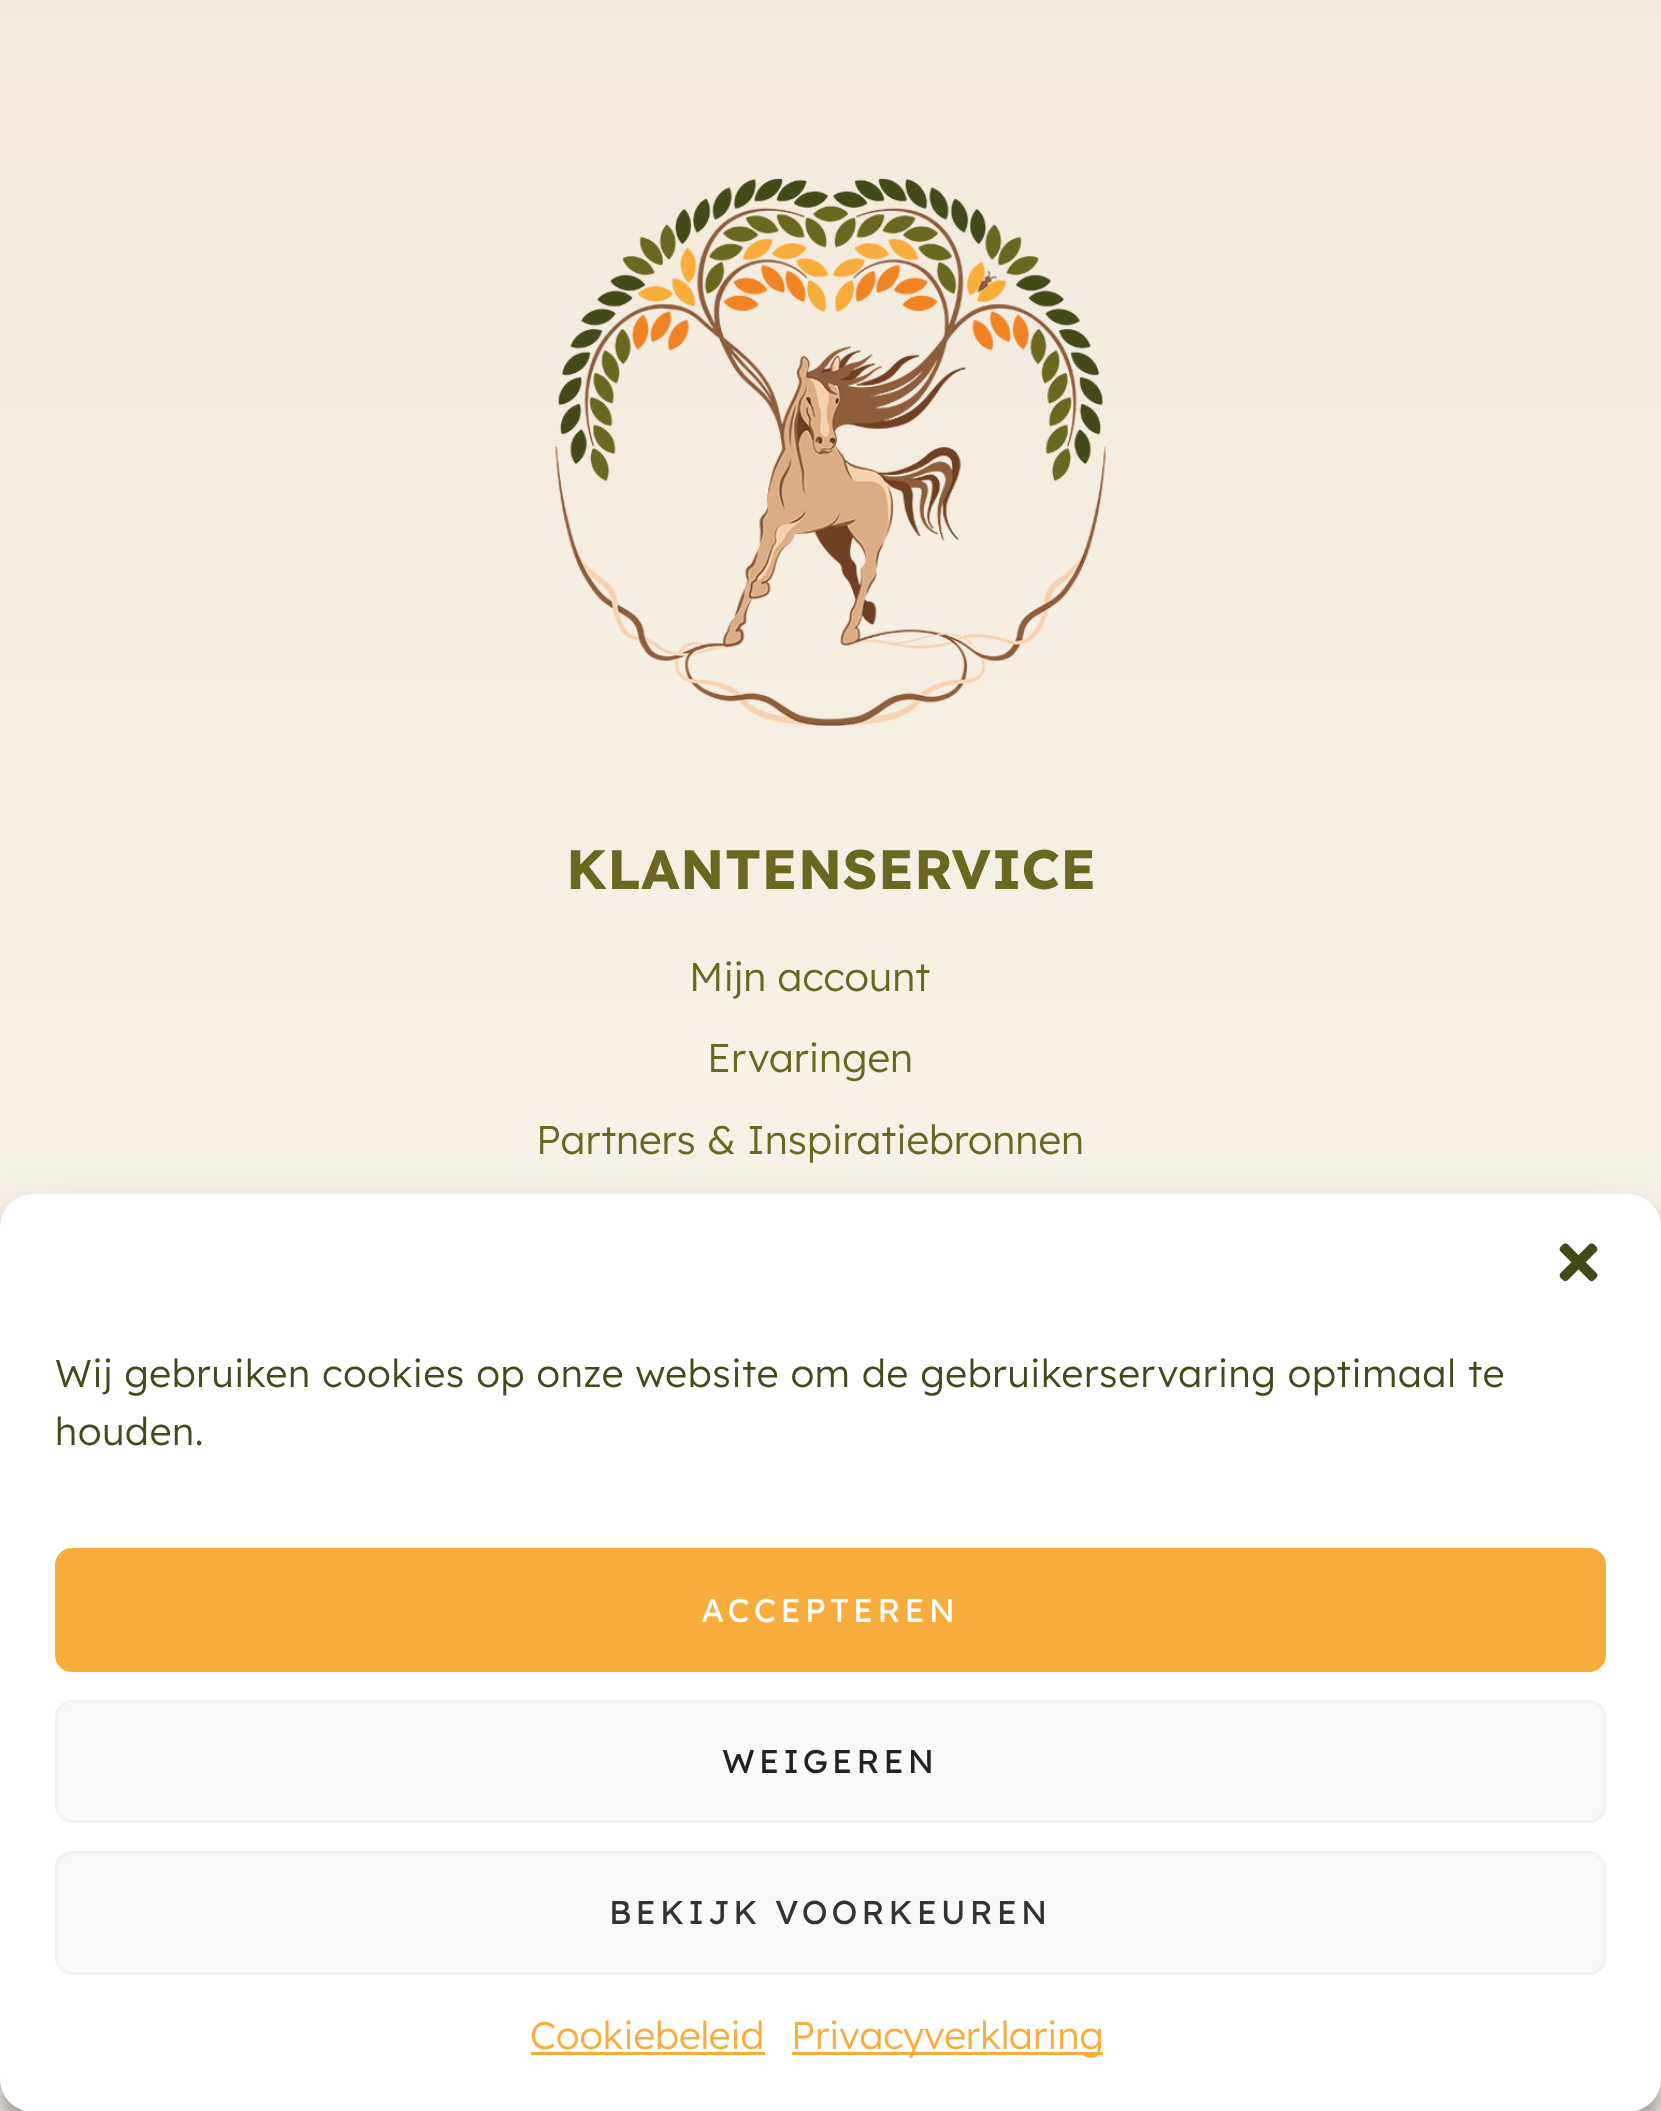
(async () => {
  const canvas = document.querySelector("canvas");
  canvas.width = 1661;
  canvas.height = 2111;
  const ctx = canvas.getContext("2d");
  ctx.miterLimit = 4;
  ctx.fontKerning = "normal";
  async function loadImage(src) {
    const img = new Image();
    img.src = src;
    await img.decode();
    return img;
  }
  let gradient;

  ctx.fillStyle = "#ffffff";
  ctx.fillRect(0, 0, 1661, 2111);
  gradient = ctx.createLinearGradient(830, -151, 831, 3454);
  gradient.addColorStop(0, "#f2e9d9");
  gradient.addColorStop(1, "#ffffff");
  ctx.fillStyle = gradient;
  ctx.fillRect(0, 0, 1661, 2111);
  ctx.drawImage(await loadImage("img/1.png"), 555, 178, 551, 548);
  ctx.fillStyle = "rgba(0, 0, 0, 0.23)";
  ctx.filter = "blur(8px)";
  ctx.beginPath();
  ctx.roundRect(0, 1210, 1661, 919, 33);
  ctx.fill();
  ctx.filter = "none";
  ctx.fillStyle = "rgba(0, 0, 0, 0.19)";
  ctx.filter = "blur(27.5px)";
  ctx.beginPath();
  ctx.roundRect(0, 1221, 1661, 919, 33);
  ctx.fill();
  ctx.filter = "none";
  ctx.fillStyle = "#808080";
  ctx.filter = "blur(7px)";
  ctx.beginPath();
  ctx.roundRect(1469, 1909, 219, 165, 6);
  ctx.fill();
  ctx.filter = "none";
  ctx.fillStyle = "#ffffff";
  ctx.beginPath();
  ctx.roundRect(0, 1194, 1661, 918, 33);
  ctx.fill();
  ctx.drawImage(await loadImage("img/2.png"), 1559, 1243, 39, 39);
  ctx.fillStyle = "#f8ac3c";
  ctx.beginPath();
  ctx.roundRect(56.5, 1549.5, 1548, 121, 15.5);
  ctx.fill();
  ctx.strokeStyle = "#f8ac3c";
  ctx.lineWidth = 3;
  ctx.stroke();
  ctx.fillStyle = "#f9f9f9";
  ctx.beginPath();
  ctx.roundRect(56.5, 1701.5, 1548, 120, 15.5);
  ctx.fill();
  ctx.strokeStyle = "#f2f2f2";
  ctx.stroke();
  ctx.beginPath();
  ctx.roundRect(56.5, 1852.5, 1548, 121, 15.5);
  ctx.fill();
  ctx.stroke();
  ctx.fillStyle = "#f8ac3c";
  ctx.fillRect(531, 2052, 234, 3);
  ctx.fillRect(792, 2052, 311, 3);
  ctx.letterSpacing = "0.4px";
  ctx.font = "bold 55.25px Lexend";
  ctx.fillStyle = "#696720";
  ctx.fillText("KLANTENSERVICE", 566, 889);
  ctx.letterSpacing = "0px";
  ctx.font = "300 40.1px Lexend";
  for (const [text, x, y] of [
    ["Mijn account", 689, 991],
    ["Ervaringen", 707, 1072],
    ["Partners & Inspiratiebronnen", 536, 1154],
  ]) {
    ctx.fillText(text, x, y);
  }
  ctx.letterSpacing = "0.7px";
  ctx.font = "300 38.5px Lexend";
  ctx.fillStyle = "#44491a";
  ctx.fillText("Wij gebruiken cookies op onze website om de gebruikerservaring optimaal te", 55, 1387);
  ctx.fillText("houden.", 55, 1445);
  ctx.letterSpacing = "4.1px";
  ctx.font = "33px Lexend";
  ctx.fillStyle = "#ffffff";
  ctx.fillText("ACCEPTEREN", 701, 1622);
  ctx.fillStyle = "#222222";
  ctx.fillText("WEIGEREN", 722, 1773);
  ctx.fillStyle = "#333333";
  ctx.fillText("BEKIJK VOORKEUREN", 609, 1924);
  ctx.letterSpacing = "0px";
  ctx.font = "300 38.5px Lexend";
  ctx.fillStyle = "#f8ac3c";
  ctx.fillText("Cookiebeleid", 530, 2049);
  ctx.fillText("Privacyverklaring", 791, 2049);
})();
